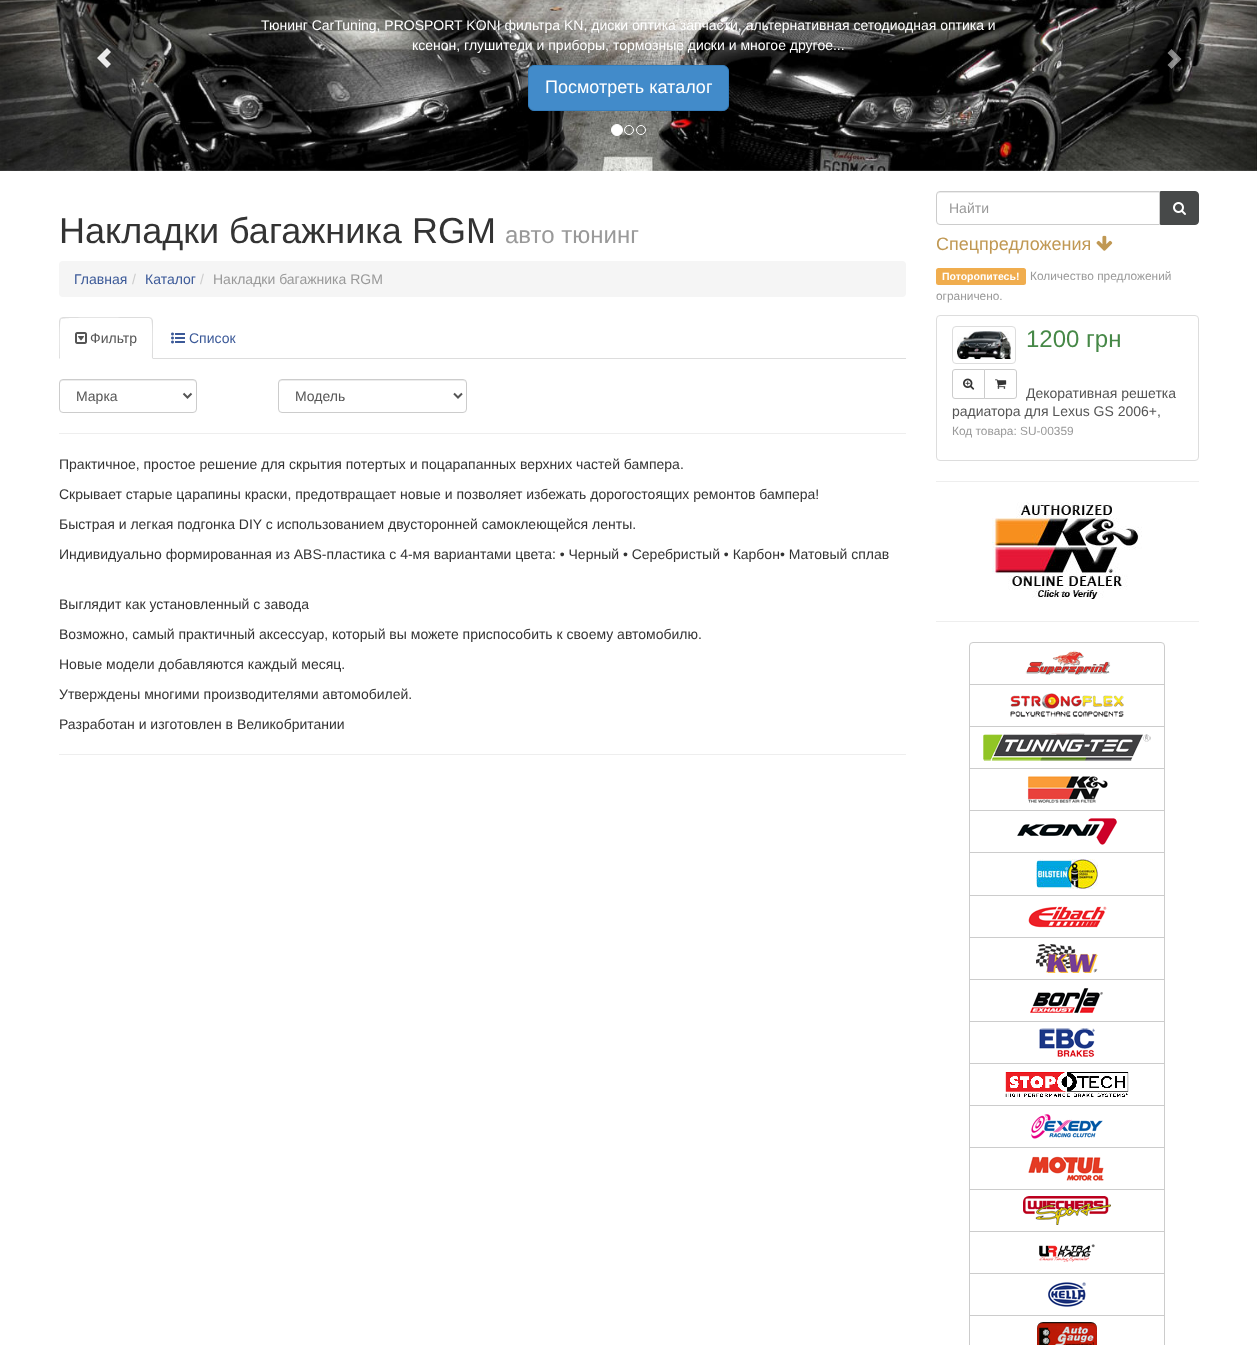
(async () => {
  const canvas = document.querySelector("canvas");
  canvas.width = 1257;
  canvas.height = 1345;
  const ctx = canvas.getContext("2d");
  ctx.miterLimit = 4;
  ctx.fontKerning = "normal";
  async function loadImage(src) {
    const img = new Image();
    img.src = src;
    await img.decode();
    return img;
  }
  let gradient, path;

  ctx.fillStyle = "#ffffff";
  ctx.fillRect(0, 0, 1257, 1345);
  ctx.drawImage(await loadImage("img/1.png"), 0, 0, 1257, 171);
  gradient = ctx.createLinearGradient(0, 46, 189, 46);
  gradient.addColorStop(0, "rgba(0, 0, 0, 0.45)");
  gradient.addColorStop(1, "rgba(0, 0, 0, 0)");
  ctx.fillStyle = gradient;
  ctx.fillRect(0, 0, 179, 171);
  ctx.fillStyle = "rgba(255, 255, 255, 0.9)";
  path = new Path2D("M107 68L111 64L105 58L111 52L107 48L97 58Z");
  ctx.fill(path);
  ctx.fillStyle = "#428bca";
  ctx.beginPath();
  ctx.roundRect(528.5, 65.5, 200, 45, 5.5);
  ctx.fill();
  ctx.strokeStyle = "#357ebd";
  ctx.stroke();
  gradient = ctx.createLinearGradient(1068, 46, 1257, 46);
  gradient.addColorStop(0, "rgba(0, 0, 0, 0)");
  gradient.addColorStop(1, "rgba(0, 0, 0, 0.25)");
  ctx.fillStyle = gradient;
  ctx.fillRect(1084, 0, 173, 171);
  ctx.fillStyle = "rgba(255, 255, 255, 0.5)";
  path = new Path2D("M1171.5 69L1167.5 65L1173.5 59L1167.5 53L1171.5 49L1181.5 59Z");
  ctx.fill(path);
  ctx.fillStyle = "#ffffff";
  ctx.beginPath();
  ctx.arc(617, 130, 5.5, 0, Math.PI * 2);
  ctx.fill();
  ctx.strokeStyle = "#ffffff";
  ctx.stroke();
  ctx.beginPath();
  ctx.arc(629, 130, 4.5, 0, Math.PI * 2);
  ctx.stroke();
  ctx.beginPath();
  ctx.arc(641, 130, 4.5, 0, Math.PI * 2);
  ctx.stroke();
  ctx.fillStyle = "#f5f5f5";
  ctx.beginPath();
  ctx.roundRect(59, 261, 847, 36, 4);
  ctx.fill();
  ctx.fillStyle = "#dddddd";
  ctx.fillRect(153, 358, 753, 1);
  path = new Path2D("M63 317L60 318L61 319C63 317 127 318 135 318H149L151 319L152 318L149 317Z");
  ctx.fill(path);
  path = new Path2D("M153 359V321C153 320 152 319 152 318L151 319C153 321 152 353 152 358Z");
  ctx.fill(path);
  path = new Path2D("M59 359L60 358C60 353 59 321 61 319L60 318L59 321Z");
  ctx.fill(path);
  ctx.drawImage(await loadImage("img/2.png"), 75, 332, 12, 12);
  ctx.drawImage(await loadImage("img/3.png"), 171, 332, 14, 12);
  ctx.fillStyle = "#ececec";
  path = new Path2D("M63 381H193C195 381 196 382 196 384C196 382 196 380 194 380H62C60 380 60 382 60 384C60 382 61 381 63 381Z");
  ctx.fill(path);
  ctx.beginPath();
  ctx.roundRect(59.5, 379.5, 137, 33, 3.5);
  ctx.strokeStyle = "#cccccc";
  ctx.stroke();
  path = new Path2D("M183.5 393.5L187.5 397.5L191.5 393.5");
  ctx.strokeStyle = "#555555";
  ctx.lineWidth = 2;
  ctx.stroke(path);
  path = new Path2D("M282 381H463C465 381 466 382 466 384C466 382 465 380 463 380H281C279 381 279 382 279 384C279 382 280 381 282 381Z");
  ctx.fill(path);
  ctx.beginPath();
  ctx.roundRect(278.5, 379.5, 188, 33, 3.5);
  ctx.strokeStyle = "#cccccc";
  ctx.lineWidth = 1;
  ctx.stroke();
  path = new Path2D("M454 393.5L458 397.5L462 393.5");
  ctx.strokeStyle = "#555555";
  ctx.lineWidth = 2;
  ctx.stroke(path);
  ctx.fillStyle = "#eeeeee";
  ctx.fillRect(59, 433, 847, 1);
  ctx.fillRect(59, 754, 847, 1);
  ctx.fillStyle = "#ececec";
  path = new Path2D("M940 193H1159V192H940C938 192 937 194 937 196C937 194 938 193 940 193Z");
  ctx.fill(path);
  ctx.beginPath();
  ctx.roundRect(936.5, 191.5, 223, 33, [3.5, 0, 0, 3.5]);
  ctx.strokeStyle = "#cccccc";
  ctx.lineWidth = 1;
  ctx.stroke();
  ctx.fillStyle = "#474949";
  ctx.beginPath();
  ctx.roundRect(1160.5, 191.5, 38, 33, [0, 3.5, 3.5, 0]);
  ctx.fill();
  ctx.strokeStyle = "#474949";
  ctx.stroke();
  ctx.drawImage(await loadImage("img/4.png"), 1173, 202, 13, 13);
  ctx.drawImage(await loadImage("img/5.png"), 1096, 235, 17, 16);
  ctx.fillStyle = "#f0ad4e";
  ctx.beginPath();
  ctx.roundRect(936, 268, 90, 17, 2.5);
  ctx.fill();
  ctx.beginPath();
  ctx.roundRect(936.5, 315.5, 262, 145, 3.5);
  ctx.strokeStyle = "#dddddd";
  ctx.stroke();
  ctx.beginPath();
  ctx.roundRect(952.5, 326.5, 63, 37, 3.5);
  ctx.stroke();
  ctx.drawImage(await loadImage("img/6.png"), 957, 331, 54, 28);
  ctx.beginPath();
  ctx.roundRect(952.5, 369.5, 32, 29, [2.5, 0, 0, 2.5]);
  ctx.strokeStyle = "#cccccc";
  ctx.stroke();
  ctx.drawImage(await loadImage("img/7.png"), 963, 378, 12, 12);
  ctx.fillStyle = "#ffffff";
  ctx.beginPath();
  ctx.roundRect(984.5, 369.5, 32, 29, [0, 2.5, 2.5, 0]);
  ctx.fill();
  ctx.stroke();
  ctx.drawImage(await loadImage("img/8.png"), 995, 379, 12, 10);
  ctx.fillStyle = "#eeeeee";
  ctx.fillRect(936, 481, 263, 1);
  ctx.drawImage(await loadImage("img/9.png"), 992, 502, 150, 97);
  ctx.fillRect(936, 621, 263, 1);
  ctx.beginPath();
  ctx.roundRect(969.5, 642.5, 195, 42, [3.5, 3.5, 0, 0]);
  ctx.stroke();
  ctx.drawImage(await loadImage("img/10.png"), 1025, 650, 86, 25);
  ctx.strokeRect(969.5, 684.5, 195, 42);
  ctx.drawImage(await loadImage("img/11.png"), 1010, 693, 114, 24);
  ctx.strokeRect(969.5, 726.5, 195, 42);
  ctx.drawImage(await loadImage("img/12.png"), 983, 733, 168, 28);
  ctx.strokeRect(969.5, 768.5, 195, 42);
  ctx.drawImage(await loadImage("img/13.png"), 1027, 776, 81, 27);
  ctx.strokeRect(969.5, 810.5, 195, 42);
  ctx.drawImage(await loadImage("img/14.png"), 1017, 818, 100, 27);
  ctx.strokeRect(969.5, 852.5, 195, 43);
  ctx.drawImage(await loadImage("img/15.png"), 1036, 859, 62, 30);
  ctx.strokeRect(969.5, 895.5, 195, 42);
  ctx.drawImage(await loadImage("img/16.png"), 1028, 906, 79, 22);
  ctx.strokeRect(969.5, 937.5, 195, 42);
  ctx.drawImage(await loadImage("img/17.png"), 1036, 944, 62, 29);
  ctx.strokeRect(969.5, 979.5, 195, 42);
  ctx.drawImage(await loadImage("img/18.png"), 1030, 988, 73, 25);
  ctx.strokeRect(969.5, 1021.5, 195, 42);
  ctx.drawImage(await loadImage("img/19.png"), 1039, 1028, 56, 29);
  ctx.strokeRect(969.5, 1063.5, 195, 42);
  ctx.drawImage(await loadImage("img/20.png"), 1005, 1072, 124, 25);
  ctx.strokeRect(969.5, 1105.5, 195, 42);
  ctx.drawImage(await loadImage("img/21.png"), 1031, 1114, 72, 25);
  ctx.strokeRect(969.5, 1147.5, 195, 42);
  ctx.drawImage(await loadImage("img/22.png"), 1028, 1156, 76, 25);
  ctx.strokeRect(969.5, 1189.5, 195, 42);
  ctx.drawImage(await loadImage("img/23.png"), 1023, 1196, 88, 29);
  ctx.strokeRect(969.5, 1231.5, 195, 42);
  ctx.drawImage(await loadImage("img/24.png"), 1039, 1244, 56, 18);
  ctx.strokeRect(969.5, 1273.5, 195, 42);
  ctx.drawImage(await loadImage("img/25.png"), 1048, 1282, 38, 25);
  ctx.strokeRect(969.5, 1315.5, 195, 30);
  ctx.drawImage(await loadImage("img/26.png"), 1037, 1322, 60, 23);
  ctx.font = "14px Liberation Sans";
  ctx.fillStyle = "#ffffff";
  ctx.fillText("Тюнинг CarTuning, PROSPORT KONI фильтра KN, диски оптика запчасти, альтернативная сетодиодная оптика и", 261, 30);
  ctx.fillText("ксенон, глушители и приборы, тормозные диски и многое другое...", 412, 50);
  ctx.font = "18px Liberation Sans";
  ctx.fillText("Посмотреть каталог", 545, 93);
  ctx.font = "36px Liberation Sans";
  ctx.fillStyle = "#333333";
  ctx.fillText("Накладки багажника RGM", 59, 243);
  ctx.font = "24px Liberation Sans";
  ctx.fillStyle = "#999999";
  ctx.fillText("авто тюнинг", 505, 243);
  ctx.font = "14px Liberation Sans";
  ctx.fillStyle = "#3b5998";
  ctx.fillText("Главная", 74, 284);
  ctx.fillStyle = "#cccccc";
  ctx.fillText("/", 132, 284);
  ctx.fillStyle = "#3b5998";
  ctx.fillText("Каталог", 145, 284);
  ctx.fillStyle = "#cccccc";
  ctx.fillText("/", 200, 284);
  ctx.fillStyle = "#999999";
  ctx.fillText("Накладки багажника RGM", 213, 284);
  ctx.fillStyle = "#555555";
  ctx.fillText("Фильтр", 90, 343);
  ctx.fillStyle = "#3b5998";
  ctx.fillText("Список", 189, 343);
  ctx.fillStyle = "#555555";
  ctx.fillText("Марка", 76, 401);
  ctx.fillText("Модель", 295, 401);
  ctx.fillStyle = "#333333";
  for (const [text, x, y] of [
    ["Практичное, простое решение для скрытия потертых и поцарапанных верхних частей бампера.", 59, 469],
    ["Скрывает старые царапины краски, предотвращает новые и позволяет избежать дорогостоящих ремонтов бампера!", 59, 499],
    ["Быстрая и легкая подгонка DIY с использованием двусторонней самоклеющейся ленты.", 59, 529],
    ["Индивидуально формированная из ABS-пластика с 4-мя вариантами цвета: • Черный • Серебристый • Карбон• Матовый сплав", 59, 559],
    ["Выглядит как установленный с завода", 59, 609],
    ["Возможно, самый практичный аксессуар, который вы можете приспособить к своему автомобилю.", 59, 639],
    ["Новые модели добавляются каждый месяц.", 59, 669],
    ["Утверждены многими производителями автомобилей.", 59, 699],
    ["Разработан и изготовлен в Великобритании", 59, 729],
  ]) {
    ctx.fillText(text, x, y);
  }
  ctx.fillStyle = "#999999";
  ctx.fillText("Найти", 949, 213);
  ctx.font = "18px Liberation Sans";
  ctx.fillStyle = "#c09853";
  ctx.fillText("Спецпредложения", 936, 250);
  ctx.font = "bold 10.5px Liberation Sans";
  ctx.fillStyle = "#ffffff";
  ctx.fillText("Поторопитесь!", 942, 280);
  ctx.font = "11.9px Liberation Sans";
  ctx.fillStyle = "#999999";
  ctx.fillText("Количество предложений", 1030, 280);
  ctx.fillText("ограничено.", 936, 300);
  ctx.font = "24px Liberation Sans";
  ctx.fillStyle = "#468847";
  ctx.fillText("1200 грн", 1026, 347);
  ctx.font = "14px Liberation Sans";
  ctx.fillStyle = "#555555";
  ctx.fillText("Декоративная решетка", 1026, 398);
  ctx.fillText("радиатора для Lexus GS 2006+,", 952, 416);
  ctx.font = "11.9px Liberation Sans";
  ctx.fillStyle = "#999999";
  ctx.fillText("Код товара: SU-00359", 952, 435);
})();
